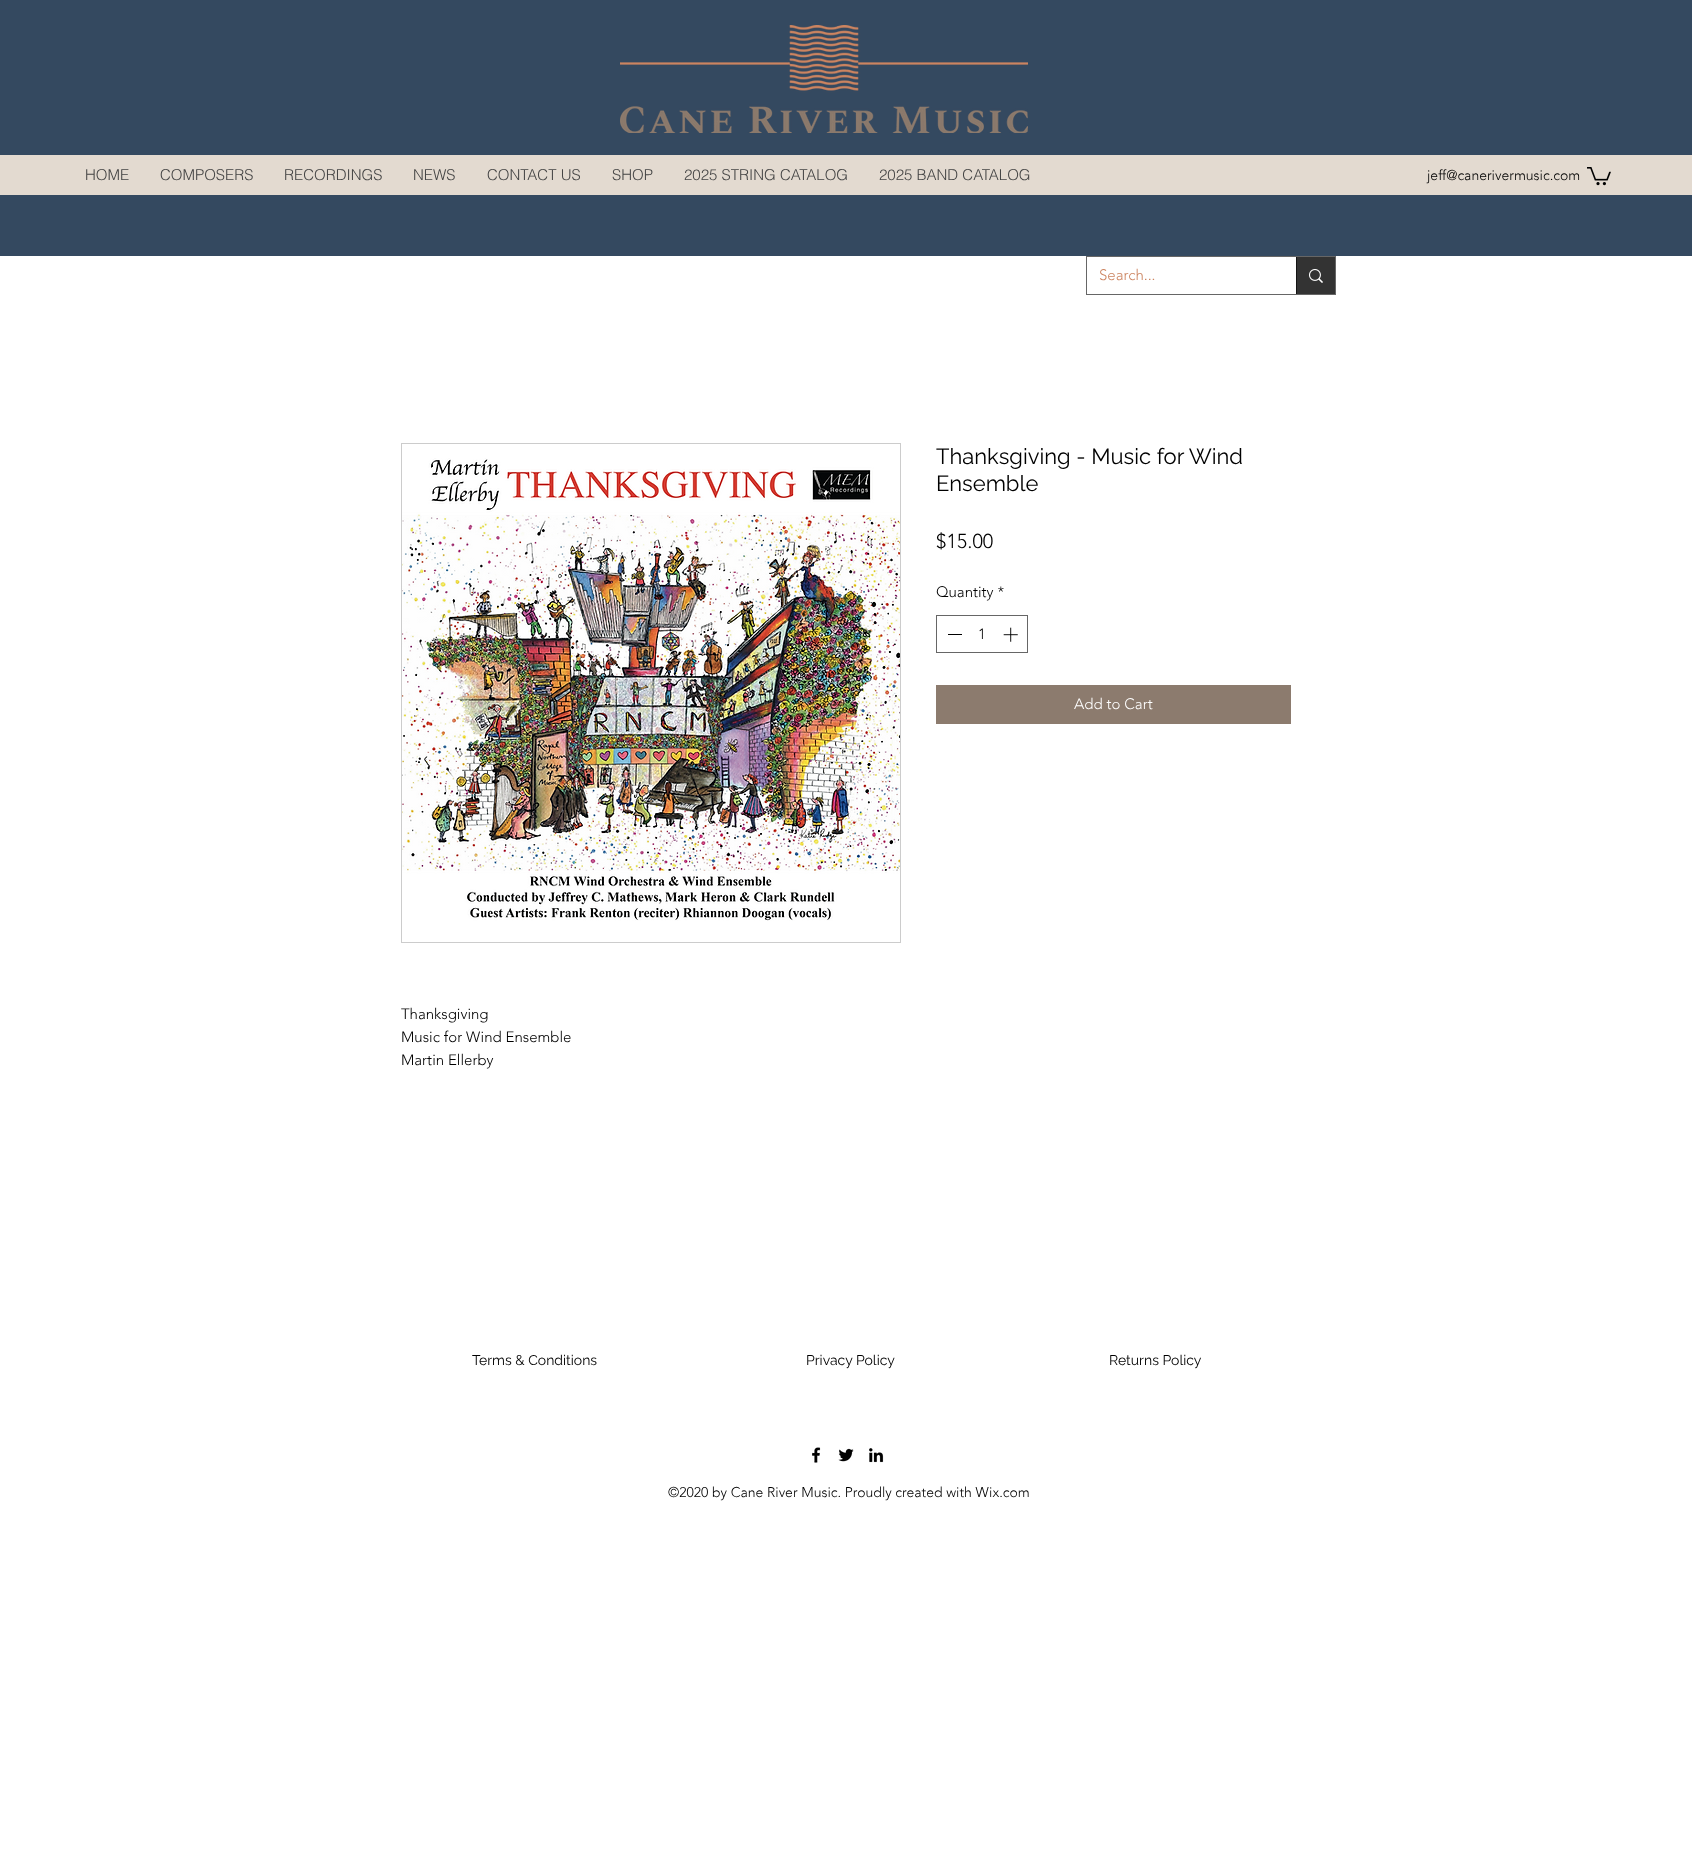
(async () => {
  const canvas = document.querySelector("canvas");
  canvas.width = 1692;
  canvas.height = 1854;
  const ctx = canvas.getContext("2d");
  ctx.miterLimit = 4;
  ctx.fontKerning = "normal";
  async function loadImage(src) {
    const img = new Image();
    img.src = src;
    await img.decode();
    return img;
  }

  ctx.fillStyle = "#ffffff";
  ctx.fillRect(0, 0, 1692, 1854);
  ctx.fillStyle = "#344960";
  ctx.fillRect(0, 0, 1692, 256);
  ctx.drawImage(await loadImage("img/1.png"), 620, 25, 408, 108);
  ctx.fillStyle = "#e3dad0";
  ctx.fillRect(0, 155, 1692, 40);
  ctx.drawImage(await loadImage("img/2.png"), 1587, 167, 24, 19);
  ctx.strokeStyle = "#666666";
  ctx.strokeRect(1086.5, 256.5, 249, 38);
  ctx.fillStyle = "#333333";
  ctx.fillRect(1297, 257, 38, 37);
  ctx.fillStyle = "#141414";
  ctx.fillRect(1296, 257, 1, 37);
  ctx.drawImage(await loadImage("img/3.png"), 1309, 269, 14, 14);
  ctx.strokeRect(936.5, 615.5, 91, 37);
  ctx.fillStyle = "#000000";
  ctx.fillRect(948, 634, 14, 1);
  ctx.drawImage(await loadImage("img/4.png"), 1003, 627, 15, 15);
  ctx.fillStyle = "#8c7b6e";
  ctx.fillRect(936, 685, 355, 39);
  ctx.strokeStyle = "#cccccc";
  ctx.strokeRect(401.5, 443.5, 499, 499);
  ctx.drawImage(await loadImage("img/5.png"), 402, 458, 498, 463);
  ctx.drawImage(await loadImage("img/6.png"), 812, 1447, 9, 16);
  ctx.drawImage(await loadImage("img/7.png"), 838, 1448, 16, 14);
  ctx.drawImage(await loadImage("img/8.png"), 869, 1448, 15, 15);
  ctx.font = "300 15px helvetica";
  ctx.fillStyle = "#444444";
  for (const [text, x, y] of [
    ["HOME", 85, 180],
    ["COMPOSERS", 160, 180],
    ["RECORDINGS", 284, 180],
    ["NEWS", 413, 180],
    ["CONTACT US", 487, 180],
    ["SHOP", 612, 180],
    ["2025 STRING CATALOG", 684, 180],
    ["2025 BAND CATALOG", 879, 180],
  ]) {
    ctx.fillText(text, x, y);
  }
  ctx.font = "300 14px 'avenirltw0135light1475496'";
  ctx.fillStyle = "#000000";
  ctx.fillText("jeff@canerivermusic.com", 1427, 180);
  ctx.font = "300 15px 'avenirltw0135light1475496'";
  ctx.fillStyle = "#cc8561";
  ctx.fillText("Search...", 1099, 280);
  ctx.font = "22px Raleway";
  ctx.fillStyle = "#000000";
  ctx.fillText("Thanksgiving - Music for Wind", 936, 464);
  ctx.fillText("Ensemble", 936, 491);
  ctx.font = "300 20px 'avenirltw0135light1475496'";
  ctx.fillText("$15.00", 936, 548);
  ctx.font = "300 15px 'avenirltw0135light1475496'";
  ctx.fillText("Quantity *", 936, 597);
  ctx.fillText("1", 978, 639);
  ctx.fillStyle = "#ffffff";
  ctx.fillText("Add to Cart", 1074, 709);
  ctx.fillStyle = "#000000";
  for (const [text, x, y] of [
    ["Thanksgiving", 401, 1019],
    ["Music for Wind Ensemble", 401, 1042],
    ["Martin Ellerby", 401, 1065],
  ]) {
    ctx.fillText(text, x, y);
  }
  ctx.font = "14px Raleway";
  for (const [text, x, y] of [
    ["Terms & Conditions", 472, 1365],
    ["Privacy Policy", 806, 1365],
    ["Returns Policy", 1109, 1365],
  ]) {
    ctx.fillText(text, x, y);
  }
  ctx.font = "300 14px 'avenirltw0135light1475496'";
  ctx.fillText("©2020 by Cane River Music. Proudly created with Wix.com", 668, 1497);
})();
